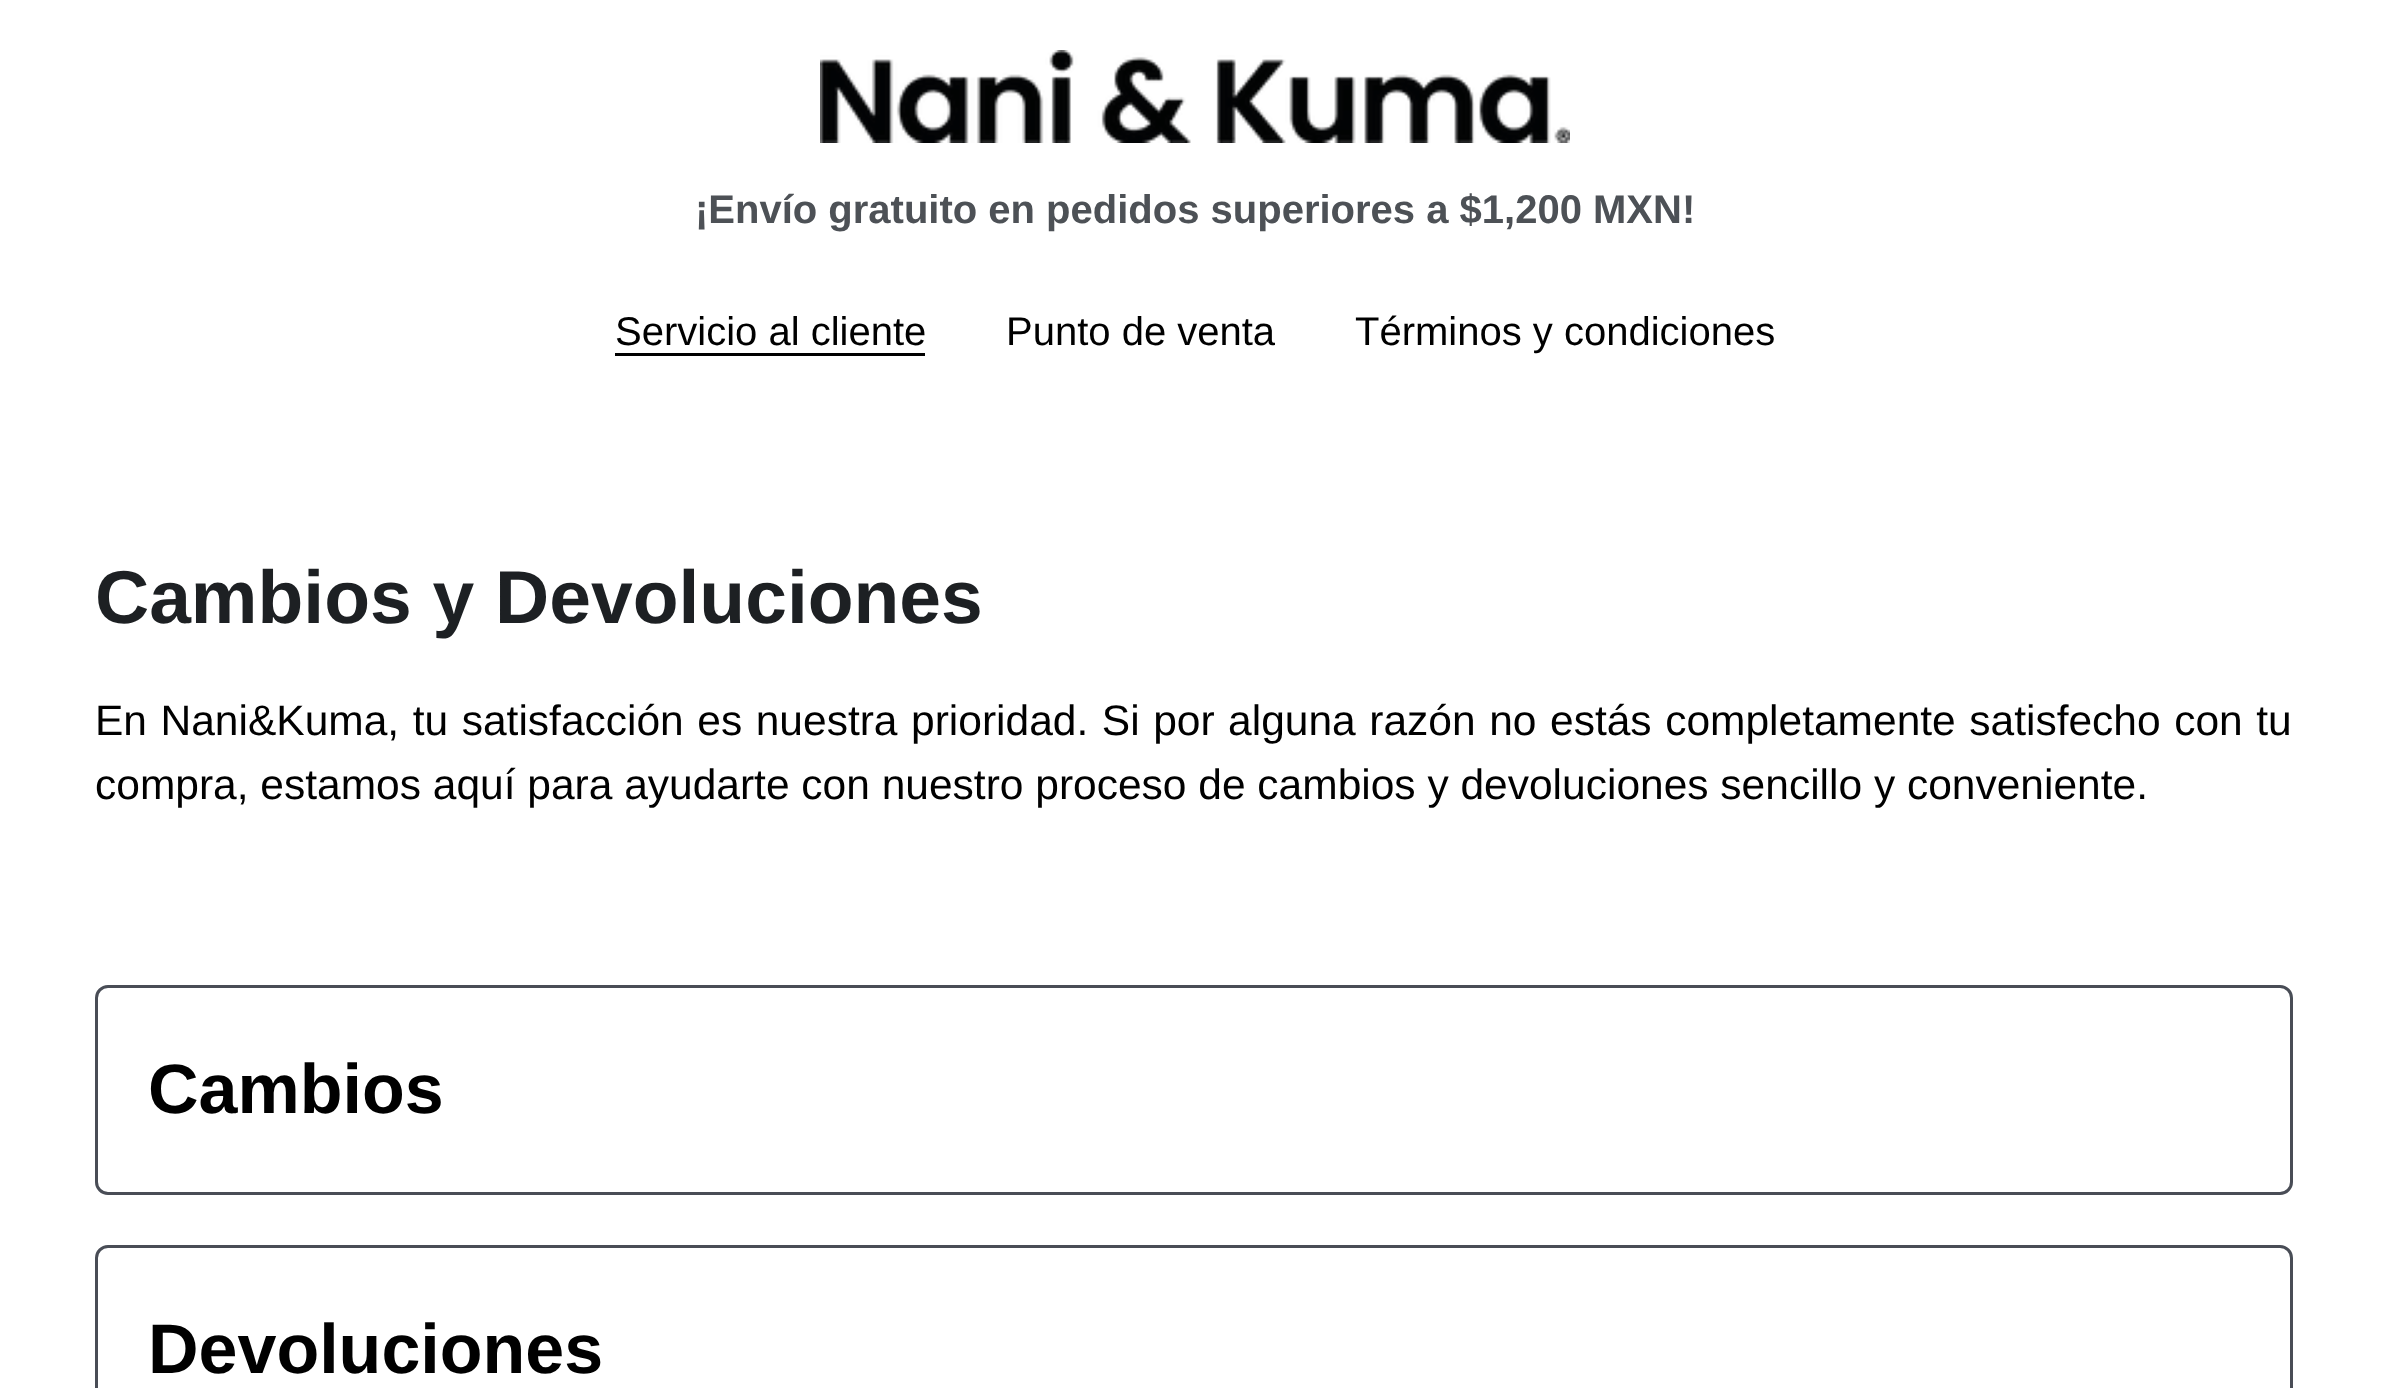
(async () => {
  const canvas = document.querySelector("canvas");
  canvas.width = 2390;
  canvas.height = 1388;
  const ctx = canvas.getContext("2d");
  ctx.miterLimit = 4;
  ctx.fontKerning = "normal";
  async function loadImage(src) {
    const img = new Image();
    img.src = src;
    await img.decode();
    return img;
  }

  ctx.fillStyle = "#ffffff";
  ctx.fillRect(0, 0, 2390, 1388);
  ctx.drawImage(await loadImage("img/1.png"), 820, 50, 750, 93);
  ctx.fillStyle = "#000000";
  ctx.fillRect(615, 353, 310, 3);
  ctx.beginPath();
  ctx.roundRect(96.5, 986.5, 2195, 207, 11.5);
  ctx.strokeStyle = "#494d56";
  ctx.lineWidth = 3;
  ctx.stroke();
  ctx.beginPath();
  ctx.roundRect(96.5, 1246.5, 2195, 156, 11.5);
  ctx.stroke();
  ctx.font = "bold 40px Liberation Sans";
  ctx.fillStyle = "#4d5156";
  ctx.fillText("¡Envío gratuito en pedidos superiores a $1,200 MXN!", 695, 223);
  ctx.font = "40px Liberation Sans";
  ctx.fillStyle = "#000000";
  for (const [text, x, y] of [
    ["Servicio al cliente", 615, 345],
    ["Punto de venta", 1006, 345],
    ["Términos y condiciones", 1355, 345],
  ]) {
    ctx.fillText(text, x, y);
  }
  ctx.font = "bold 75px Liberation Sans";
  ctx.fillStyle = "#1d2023";
  ctx.fillText("Cambios y Devoluciones", 95, 623);
  ctx.wordSpacing = "1.75px";
  ctx.font = "42.5px Liberation Sans";
  ctx.fillStyle = "#000000";
  ctx.fillText("En Nani&Kuma, tu satisfacción es nuestra prioridad. Si por alguna razón no estás completamente satisfecho con tu", 95, 735);
  ctx.wordSpacing = "0px";
  ctx.fillText("compra, estamos aquí para ayudarte con nuestro proceso de cambios y devoluciones sencillo y conveniente.", 95, 799);
  ctx.font = "bold 70px Liberation Sans";
  ctx.fillText("Cambios", 148, 1113);
  ctx.fillText("Devoluciones", 148, 1373);
})();
